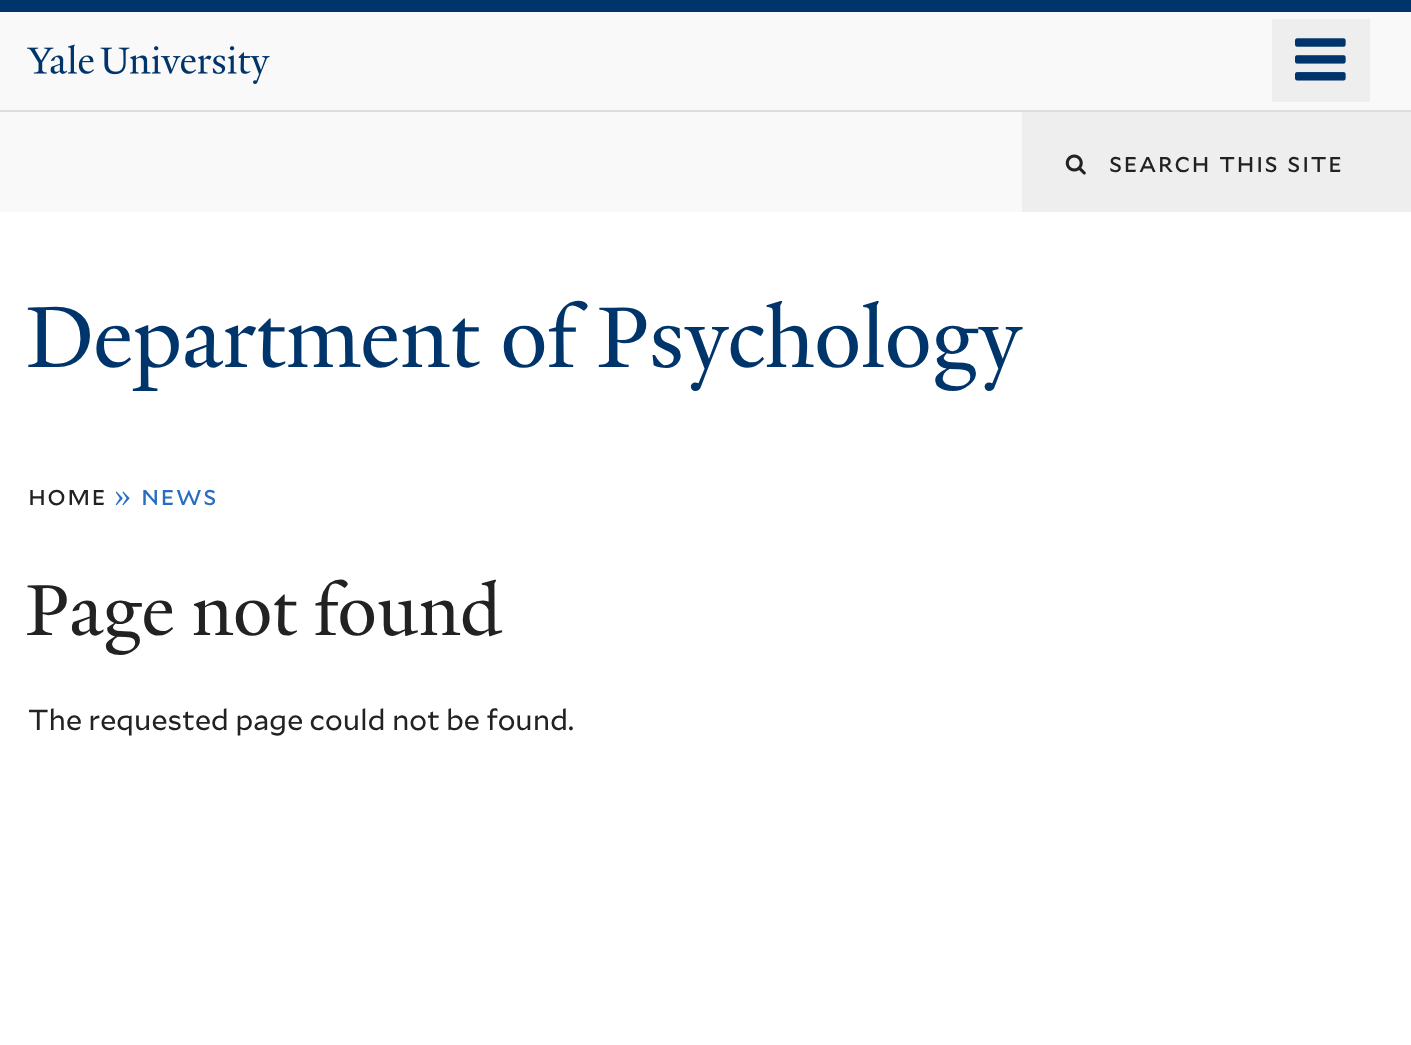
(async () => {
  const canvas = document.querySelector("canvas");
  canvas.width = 1411;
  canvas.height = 1045;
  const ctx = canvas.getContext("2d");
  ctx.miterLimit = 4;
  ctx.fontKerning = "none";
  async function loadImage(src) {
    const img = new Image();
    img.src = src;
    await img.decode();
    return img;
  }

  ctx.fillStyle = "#ffffff";
  ctx.fillRect(0, 0, 1411, 1045);
  for (const [x, y, w, h, color] of [
    [0, 0, 1411, 12, "#00356b"],
    [0, 12, 1411, 200, "#f9f9f9"],
    [0, 110, 1411, 2, "#dddddd"],
  ]) {
    ctx.fillStyle = color;
    ctx.fillRect(x, y, w, h);
  }
  ctx.drawImage(await loadImage("img/1.png"), 27, 44, 67, 30);
  ctx.drawImage(await loadImage("img/2.png"), 100, 46, 170, 38);
  ctx.fillStyle = "#eeeeee";
  ctx.fillRect(1272, 19, 98, 83);
  ctx.drawImage(await loadImage("img/3.png"), 1295, 38, 51, 43);
  ctx.fillRect(1022, 112, 389, 100);
  ctx.drawImage(await loadImage("img/4.png"), 1065, 154, 21, 21);
  ctx.letterSpacing = "1.3px";
  ctx.wordSpacing = "1px";
  ctx.font = "26.75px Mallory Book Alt";
  ctx.fillStyle = "#222222";
  ctx.fillText("search this site", 1109, 172);
  ctx.letterSpacing = "0px";
  ctx.wordSpacing = "0px";
  ctx.font = "93.25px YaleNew";
  ctx.fillStyle = "#00356b";
  ctx.fillText("Department of Psychology", 26, 367);
  ctx.letterSpacing = "1.3px";
  ctx.font = "26.75px Mallory Book Alt";
  ctx.fillStyle = "#222222";
  ctx.fillText("home", 28, 505);
  ctx.font = "26.75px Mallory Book";
  ctx.fillStyle = "#286dc0";
  ctx.fillText("»", 114, 505);
  ctx.font = "26.75px Mallory Book Alt";
  ctx.fillText("news", 141, 505);
  ctx.letterSpacing = "0px";
  ctx.wordSpacing = "-1px";
  ctx.font = "78px YaleNew";
  ctx.fillStyle = "#222222";
  ctx.fillText("Page not found", 26, 635);
  ctx.wordSpacing = "0px";
  ctx.font = "28.8px Mallory Book";
  ctx.fillText("The requested page could not be found.", 28, 730);
})();
